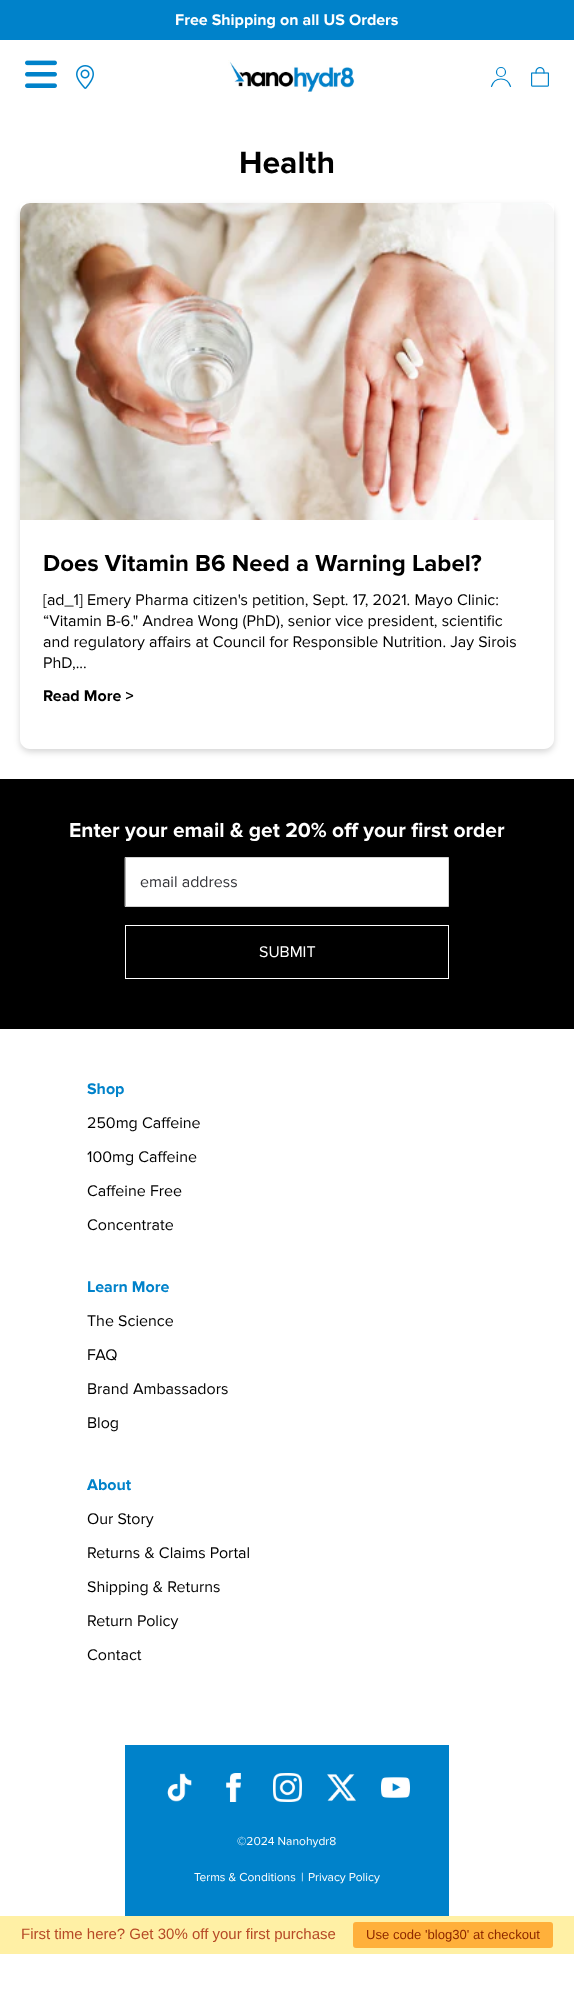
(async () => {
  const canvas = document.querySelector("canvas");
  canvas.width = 574;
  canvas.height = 2016;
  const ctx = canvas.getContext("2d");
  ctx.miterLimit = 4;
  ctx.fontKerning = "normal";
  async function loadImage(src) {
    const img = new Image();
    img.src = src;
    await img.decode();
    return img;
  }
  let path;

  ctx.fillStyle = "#ffffff";
  ctx.fillRect(0, 0, 574, 2016);
  ctx.fillStyle = "#0082ca";
  ctx.fillRect(0, 0, 574, 40);
  ctx.drawImage(await loadImage("img/1.png"), 25, 60, 32, 28);
  ctx.drawImage(await loadImage("img/2.png"), 76, 65, 18, 24);
  ctx.drawImage(await loadImage("img/3.png"), 228, 60, 127, 32);
  ctx.beginPath();
  ctx.arc(501, 72, 4.5, 0, Math.PI * 2);
  ctx.strokeStyle = "#0082ca";
  ctx.lineWidth = 1.2;
  ctx.stroke();
  path = new Path2D("M510.5 86.5C507.5 76.5 494.5 76.5 491.5 86.5");
  ctx.lineCap = "round";
  ctx.lineJoin = "round";
  ctx.stroke(path);
  ctx.drawImage(await loadImage("img/4.png"), 531, 67, 18, 20);
  ctx.save();
  path = new Path2D("M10 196H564V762H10ZM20 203H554V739C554 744.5 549.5 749 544 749H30C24.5 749 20 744.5 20 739Z");
  ctx.clip(path, "evenodd");
  ctx.fillStyle = "rgba(0, 0, 0, 0.16)";
  ctx.filter = "blur(3px)";
  ctx.beginPath();
  ctx.roundRect(20, 206, 534, 546, 10);
  ctx.fill();
  ctx.filter = "none";
  ctx.restore();
  ctx.drawImage(await loadImage("img/5.png"), 20, 203, 534, 317);
  ctx.fillStyle = "#000000";
  ctx.fillRect(0, 779, 574, 250);
  ctx.fillStyle = "#ffffff";
  ctx.beginPath();
  ctx.rect(125.5, 857.5, 323, 49);
  ctx.fill();
  ctx.strokeStyle = "#d3d3d3";
  ctx.lineWidth = 1;
  ctx.lineJoin = "miter";
  ctx.stroke();
  ctx.strokeStyle = "#ffffff";
  ctx.strokeRect(125.5, 925.5, 323, 53);
  ctx.fillStyle = "#0082ca";
  ctx.fillRect(125, 1745, 324, 171);
  ctx.drawImage(await loadImage("img/6.png"), 167, 1773, 25, 29);
  ctx.drawImage(await loadImage("img/7.png"), 226, 1773, 15, 29);
  ctx.drawImage(await loadImage("img/8.png"), 273, 1773, 29, 29);
  ctx.drawImage(await loadImage("img/9.png"), 327, 1774, 29, 28);
  ctx.drawImage(await loadImage("img/10.png"), 381, 1777, 29, 21);
  ctx.fillStyle = "#fff0a5";
  ctx.fillRect(0, 1916, 574, 38);
  ctx.fillStyle = "#ffb03b";
  ctx.beginPath();
  ctx.roundRect(353, 1922, 200, 26, 3);
  ctx.fill();
  ctx.font = "bold 16px Proxima Nova";
  ctx.fillStyle = "#ffffff";
  ctx.fillText("Free Shipping on all US Orders", 175, 25);
  ctx.font = "bold 32px Proxima Nova";
  ctx.fillStyle = "#000000";
  ctx.fillText("Health", 239, 173);
  ctx.font = "bold 24px Proxima Nova";
  ctx.fillText("Does Vitamin B6 Need a Warning Label?", 43, 571);
  ctx.font = "16px Proxima Nova";
  for (const [text, x, y] of [
    ["[ad_1] Emery Pharma citizen's petition, Sept. 17, 2021. Mayo Clinic:", 43, 605],
    ["“Vitamin B-6.\" Andrea Wong (PhD), senior vice president, scientific", 43, 626],
    ["and regulatory affairs at Council for Responsible Nutrition. Jay Sirois", 43, 647],
    ["PhD,...", 43, 668],
  ]) {
    ctx.fillText(text, x, y);
  }
  ctx.font = "bold 16px Proxima Nova";
  ctx.fillText("Read More >", 43, 701);
  ctx.font = "bold 21px Proxima Nova";
  ctx.fillStyle = "#ffffff";
  ctx.fillText("Enter your email & get 20% off your first order", 69, 837);
  ctx.font = "16px Proxima Nova";
  ctx.fillStyle = "#333439";
  ctx.fillText("email address", 140, 887);
  ctx.fillStyle = "#ffffff";
  ctx.fillText("SUBMIT", 259, 957);
  ctx.font = "bold 16px Proxima Nova";
  ctx.fillStyle = "#0082ca";
  ctx.fillText("Shop", 87, 1094);
  ctx.font = "16px Proxima Nova";
  ctx.fillStyle = "#000000";
  for (const [text, x, y] of [
    ["250mg Caffeine", 87, 1128],
    ["100mg Caffeine", 87, 1162],
    ["Caffeine Free", 87, 1196],
    ["Concentrate", 87, 1230],
  ]) {
    ctx.fillText(text, x, y);
  }
  ctx.font = "bold 16px Proxima Nova";
  ctx.fillStyle = "#0082ca";
  ctx.fillText("Learn More", 87, 1292);
  ctx.font = "16px Proxima Nova";
  ctx.fillStyle = "#000000";
  for (const [text, x, y] of [
    ["The Science", 87, 1326],
    ["FAQ", 87, 1360],
    ["Brand Ambassadors", 87, 1394],
    ["Blog", 87, 1428],
  ]) {
    ctx.fillText(text, x, y);
  }
  ctx.font = "bold 16px Proxima Nova";
  ctx.fillStyle = "#0082ca";
  ctx.fillText("About", 87, 1490);
  ctx.font = "16px Proxima Nova";
  ctx.fillStyle = "#000000";
  for (const [text, x, y] of [
    ["Our Story", 87, 1524],
    ["Returns & Claims Portal", 87, 1558],
    ["Shipping & Returns", 87, 1592],
    ["Return Policy", 87, 1626],
    ["Contact", 87, 1660],
  ]) {
    ctx.fillText(text, x, y);
  }
  ctx.font = "12px Proxima Nova";
  ctx.fillStyle = "#ffffff";
  for (const [text, x, y] of [
    ["©2024 Nanohydr8", 237, 1845],
    ["Terms & Conditions", 194, 1881],
    ["|", 301, 1881],
    ["Privacy Policy", 308, 1881],
  ]) {
    ctx.fillText(text, x, y);
  }
  ctx.font = "15px Liberation Sans";
  ctx.fillStyle = "#b64926";
  ctx.fillText("First time here? Get 30% off your first purchase", 21, 1939);
  ctx.font = "13.1px Liberation Sans";
  ctx.fillStyle = "#8e2800";
  ctx.fillText("Use code 'blog30' at checkout", 366, 1939);
})();
